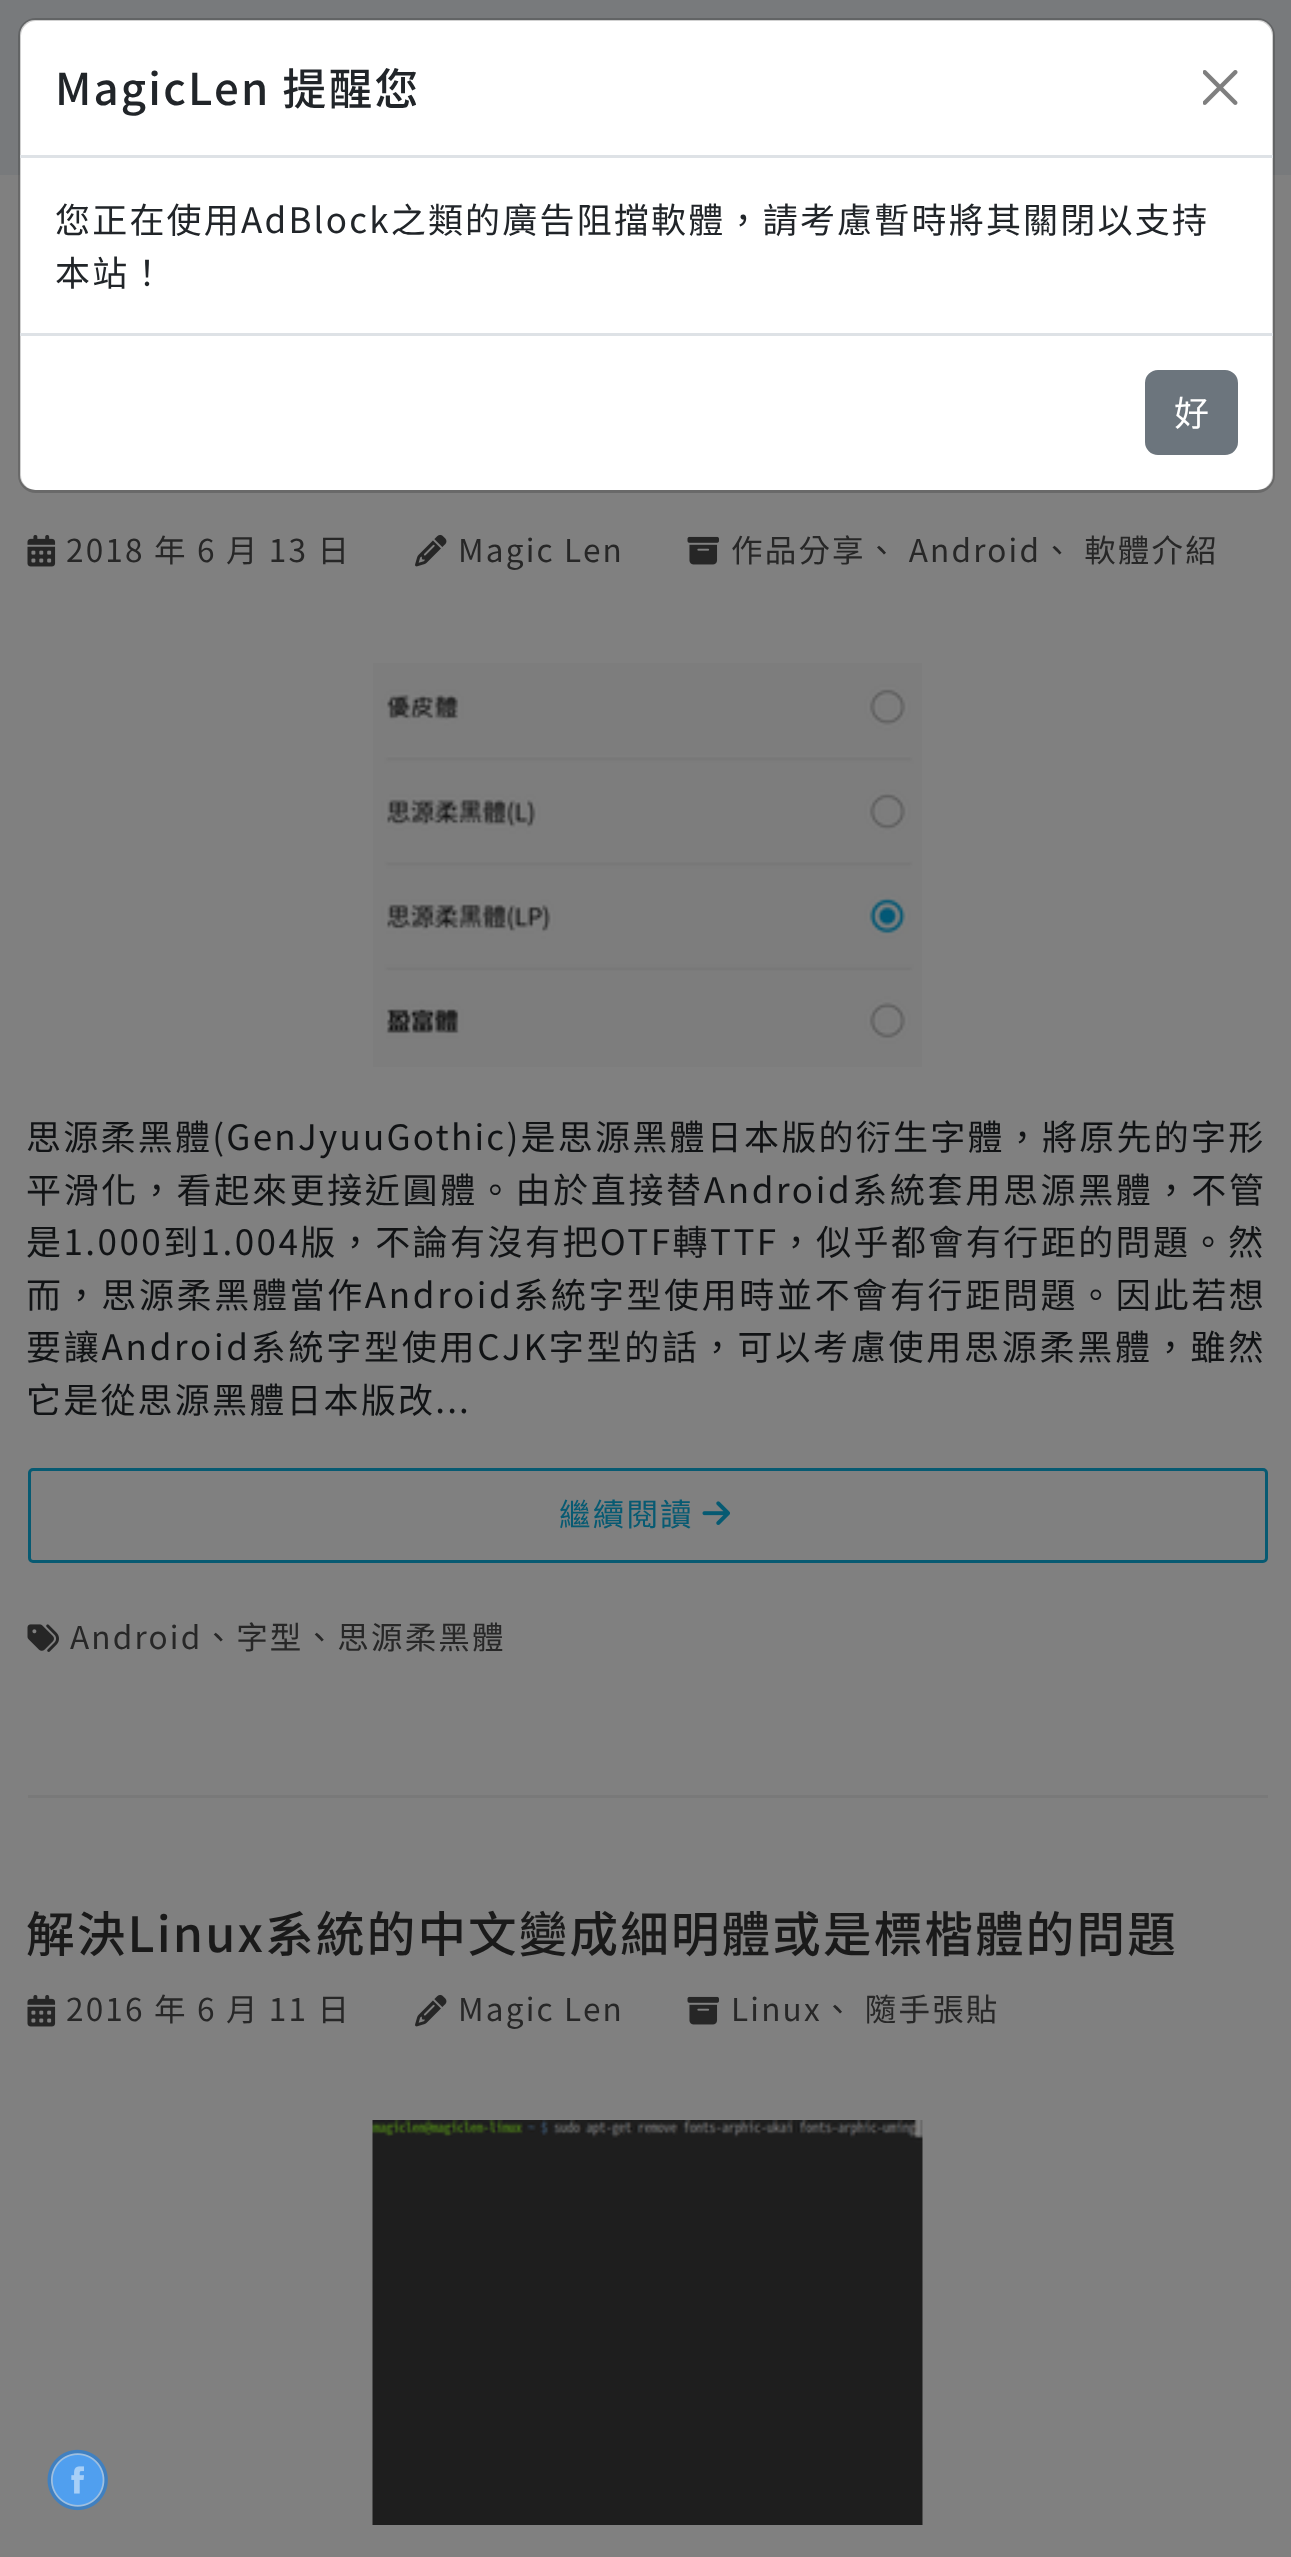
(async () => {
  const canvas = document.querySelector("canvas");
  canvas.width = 1291;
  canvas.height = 2557;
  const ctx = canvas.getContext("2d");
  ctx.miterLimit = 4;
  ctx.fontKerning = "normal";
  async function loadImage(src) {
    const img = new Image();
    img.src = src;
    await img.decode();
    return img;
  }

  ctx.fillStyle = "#808080";
  ctx.fillRect(0, 0, 1291, 2557);
  ctx.fillStyle = "#787a7c";
  ctx.fillRect(0, 0, 1291, 175);
  ctx.fillStyle = "#ffffff";
  ctx.beginPath();
  ctx.roundRect(20, 20, 1253, 470, 15);
  ctx.fill();
  ctx.beginPath();
  ctx.roundRect(19.5, 19.5, 1254, 472, 16.5);
  ctx.strokeStyle = "rgba(0, 0, 0, 0.18)";
  ctx.lineWidth = 3;
  ctx.stroke();
  ctx.fillStyle = "#dee2e6";
  ctx.fillRect(20, 155, 1253, 3);
  ctx.drawImage(await loadImage("img/1.png"), 1203, 70, 35, 35);
  ctx.fillRect(20, 333, 1253, 3);
  ctx.fillStyle = "#6c757d";
  ctx.beginPath();
  ctx.roundRect(1146.5, 371.5, 90, 82, 11.5);
  ctx.fill();
  ctx.strokeStyle = "#6c757d";
  ctx.stroke();
  ctx.drawImage(await loadImage("img/2.png"), 27, 534, 29, 33);
  ctx.drawImage(await loadImage("img/3.png"), 415, 534, 32, 33);
  ctx.drawImage(await loadImage("img/4.png"), 687, 536, 32, 29);
  ctx.drawImage(await loadImage("img/5.png"), 373, 663, 549, 404);
  ctx.beginPath();
  ctx.roundRect(29.5, 1469.5, 1237, 92, 3.5);
  ctx.strokeStyle = "#075a72";
  ctx.stroke();
  ctx.drawImage(await loadImage("img/6.png"), 702, 1501, 28, 24);
  ctx.drawImage(await loadImage("img/7.png"), 27, 1624, 32, 28);
  ctx.fillStyle = "#797979";
  ctx.fillRect(28, 1795, 1240, 3);
  ctx.drawImage(await loadImage("img/2.png"), 27, 1994, 29, 33);
  ctx.drawImage(await loadImage("img/3.png"), 415, 1994, 32, 33);
  ctx.drawImage(await loadImage("img/4.png"), 687, 1996, 32, 29);
  ctx.drawImage(await loadImage("img/8.png"), 372, 2120, 551, 405);
  ctx.drawImage(await loadImage("img/9.png"), 47, 2449, 61, 62);
  ctx.letterSpacing = "2.2px";
  ctx.font = "500 43.75px Noto Sans CJK TC";
  ctx.fillStyle = "#212529";
  ctx.fillText("MagicLen 提醒您", 55, 105);
  ctx.font = "35px Noto Sans CJK TC";
  ctx.fillText("您正在使用AdBlock之類的廣告阻擋軟體，請考慮暫時將其關閉以支持", 55, 233);
  ctx.fillText("本站！", 55, 286);
  ctx.letterSpacing = "0px";
  ctx.fillStyle = "#ffffff";
  ctx.fillText("好", 1174, 426);
  ctx.letterSpacing = "2.2px";
  ctx.font = "31.5px Noto Sans CJK TC";
  ctx.fillStyle = "#272727";
  for (const [text, x, y] of [
    ["2018 年 6 月 13 日", 66, 562],
    ["Magic Len", 458, 562],
    ["作品分享、 Android、 軟體介紹", 731, 562],
  ]) {
    ctx.fillText(text, x, y);
  }
  ctx.letterSpacing = "2.25px";
  ctx.font = "35px Noto Sans CJK TC";
  ctx.fillStyle = "#111315";
  ctx.fillText("思源柔黑體(GenJyuuGothic)是思源黑體日本版的衍生字體，將原先的字形", 26, 1150);
  ctx.letterSpacing = "2.65px";
  ctx.fillText("平滑化，看起來更接近圓體。由於直接替Android系統套用思源黑體，不管", 26, 1203);
  ctx.letterSpacing = "2.45px";
  ctx.fillText("是1.000到1.004版，不論有沒有把OTF轉TTF，似乎都會有行距的問題。然", 26, 1255);
  ctx.letterSpacing = "2.65px";
  ctx.fillText("而，思源柔黑體當作Android系統字型使用時並不會有行距問題。因此若想", 26, 1308);
  ctx.letterSpacing = "2.75px";
  ctx.fillText("要讓Android系統字型使用CJK字型的話，可以考慮使用思源柔黑體，雖然", 26, 1360);
  ctx.letterSpacing = "2.2px";
  ctx.fillText("它是從思源黑體日本版改...", 26, 1413);
  ctx.font = "31.5px Noto Sans CJK TC";
  ctx.fillStyle = "#075a72";
  ctx.fillText("繼續閱讀", 559, 1526);
  ctx.fillStyle = "#272727";
  ctx.fillText("Android、字型、思源柔黑體", 70, 1649);
  ctx.font = "500 48.5px Noto Sans CJK TC";
  ctx.fillStyle = "#1a1a1a";
  ctx.fillText("解決Linux系統的中文變成細明體或是標楷體的問題", 26, 1952);
  ctx.font = "31.5px Noto Sans CJK TC";
  ctx.fillStyle = "#272727";
  for (const [text, x, y] of [
    ["2016 年 6 月 11 日", 66, 2021],
    ["Magic Len", 458, 2021],
    ["Linux、 隨手張貼", 731, 2021],
  ]) {
    ctx.fillText(text, x, y);
  }
})();
